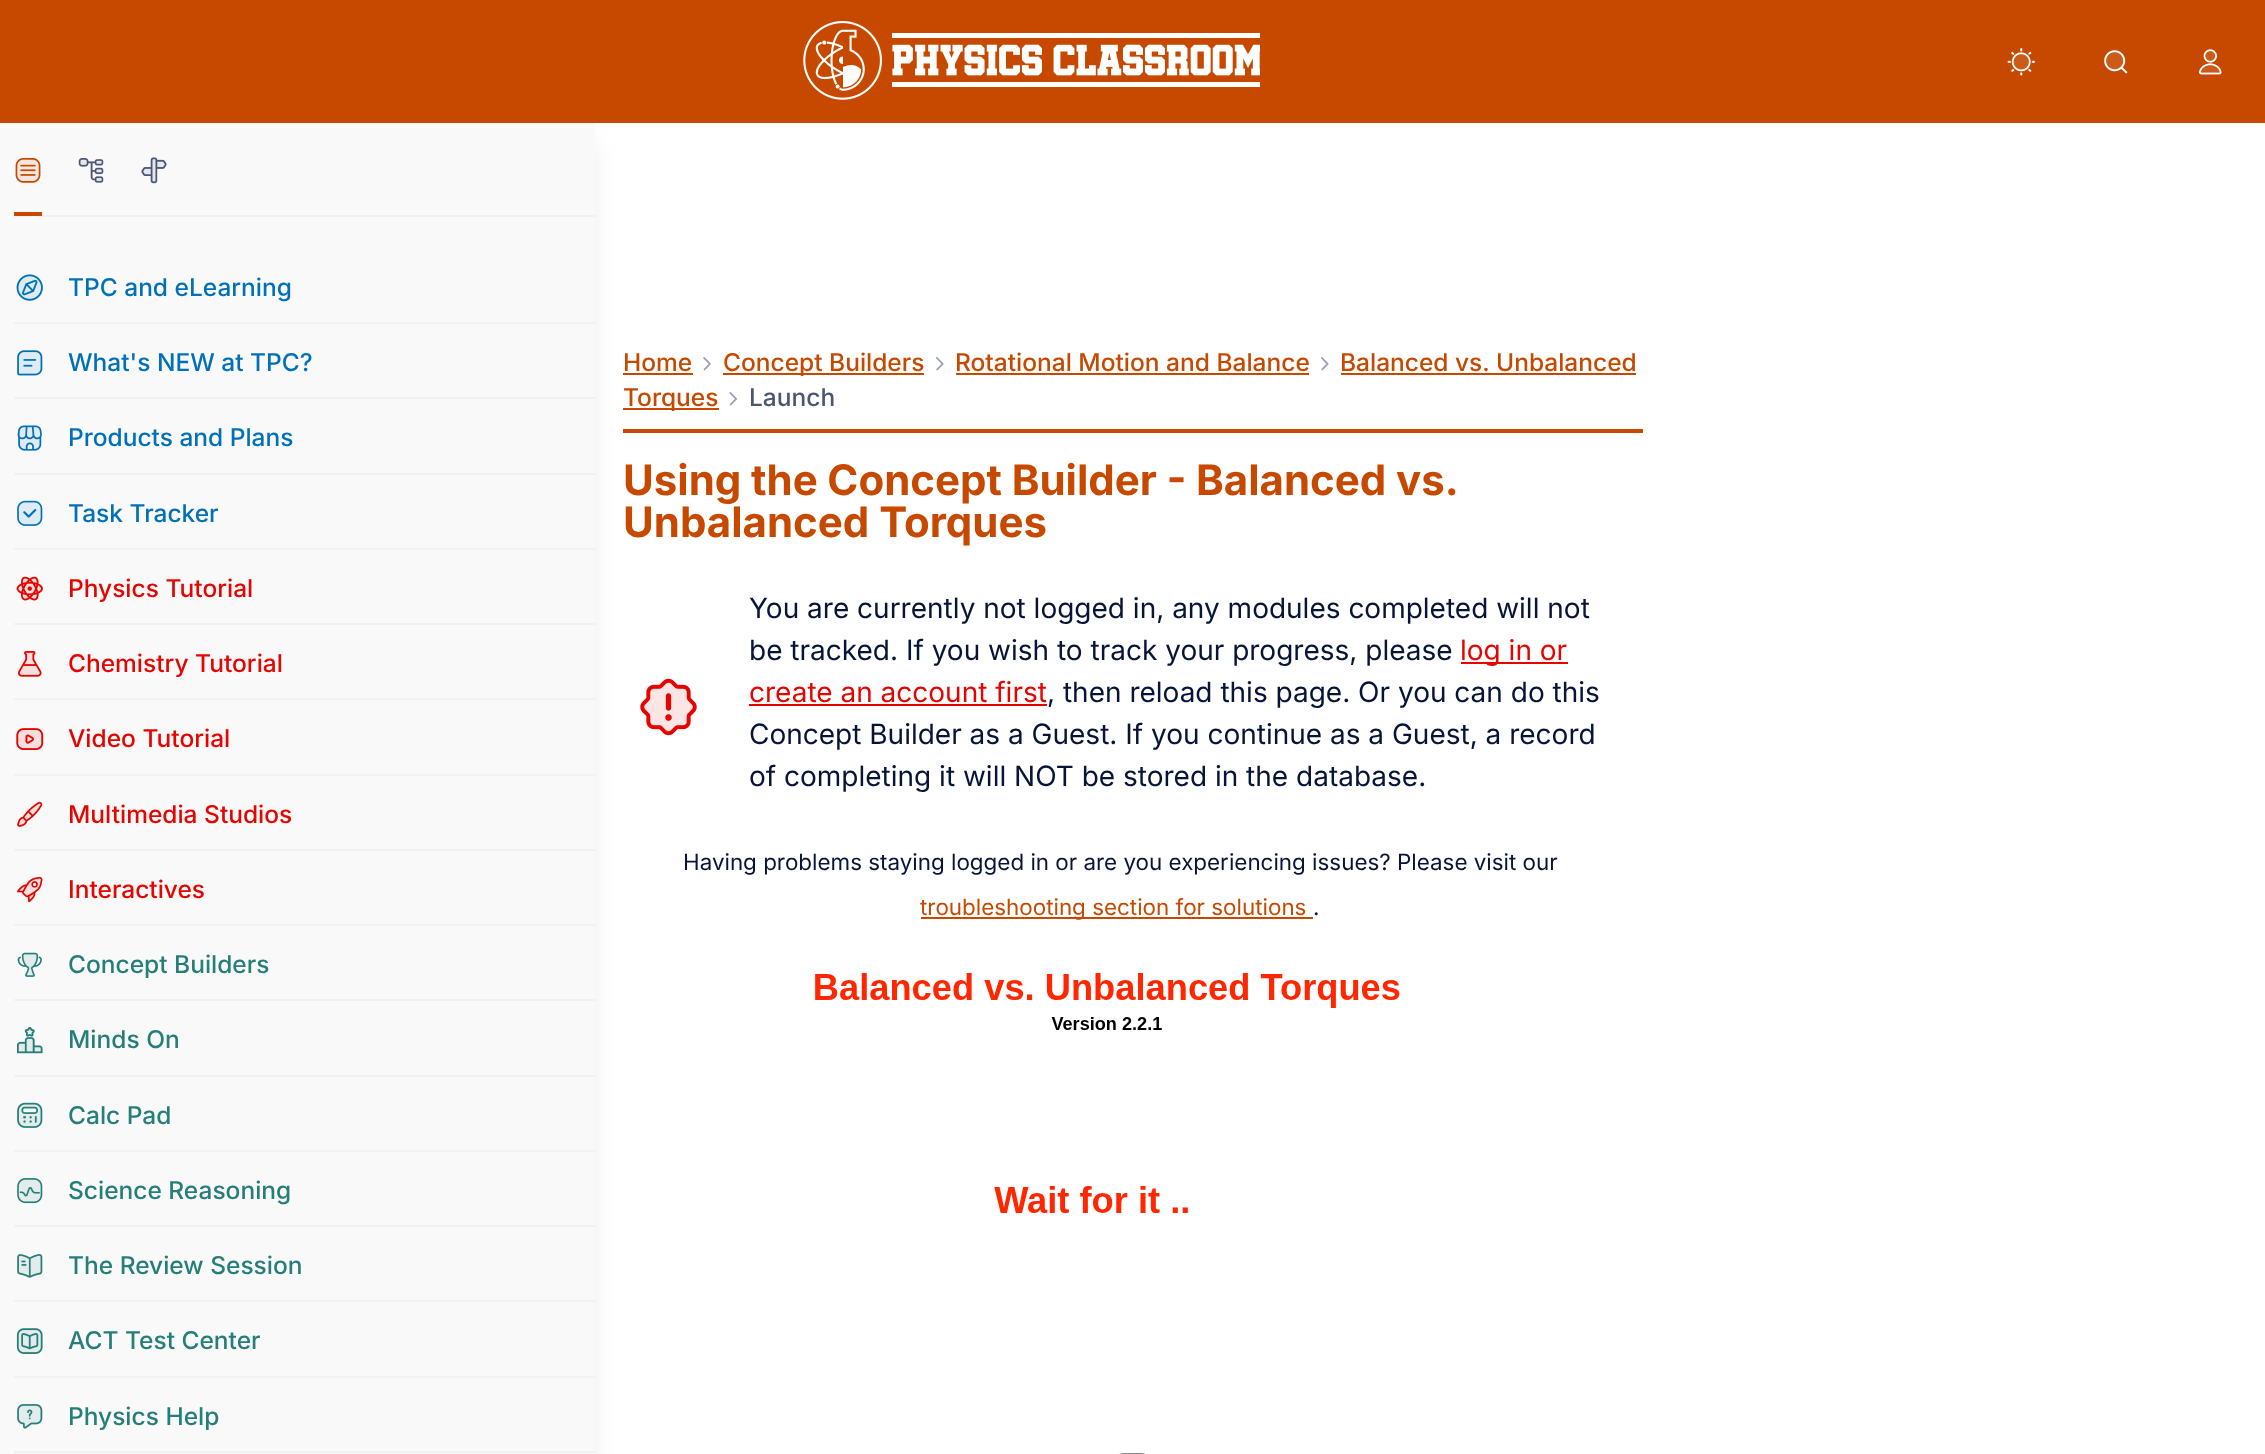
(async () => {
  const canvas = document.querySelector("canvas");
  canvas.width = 2265;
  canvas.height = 1454;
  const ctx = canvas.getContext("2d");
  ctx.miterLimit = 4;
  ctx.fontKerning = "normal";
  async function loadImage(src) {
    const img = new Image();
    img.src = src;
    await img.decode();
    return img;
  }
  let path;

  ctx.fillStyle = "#ffffff";
  ctx.fillRect(0, 0, 2265, 1454);
  for (const [x, y, w, h, color] of [
    [623, 429, 1020, 4, "#c74900"],
    [623, 373, 70, 2, "#c74900"],
    [623, 408, 96, 2, "#c74900"],
  ]) {
    ctx.fillStyle = color;
    ctx.fillRect(x, y, w, h);
  }
  ctx.fillStyle = "rgba(0, 0, 0, 0.1)";
  ctx.filter = "blur(13px)";
  ctx.beginPath();
  ctx.rect(5, 144, 585, 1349);
  ctx.fill();
  ctx.filter = "none";
  ctx.fillStyle = "#c74900";
  ctx.fillRect(0, 0, 2265, 123);
  ctx.drawImage(await loadImage("img/1.png"), 803, 21, 457, 79);
  ctx.drawImage(await loadImage("img/2.png"), 2007, 48, 28, 28);
  ctx.fillStyle = "rgba(255, 255, 255, 0.1)";
  path = new Path2D("M2030.5 62C2030.5 74 2012 74 2012 62C2012 49.5 2030.5 49.5 2030.5 62Z");
  ctx.fill(path);
  ctx.drawImage(await loadImage("img/3.png"), 2104, 50, 24, 24);
  path = new Path2D("M2125 61C2125 74 2104.5 74 2104.5 61C2104.5 47.5 2125 47.5 2125 61Z");
  ctx.fill(path);
  ctx.drawImage(await loadImage("img/4.png"), 2199, 49, 23, 26);
  ctx.drawImage(await loadImage("img/5.png"), 2199, 49, 23, 26);
  for (const [x, y, w, h, color] of [
    [0, 123, 595, 1331, "#f9f9f9"],
    [14, 215, 581, 2, "#f1f1f4"],
    [14, 212, 28, 4, "#c74900"],
  ]) {
    ctx.fillStyle = color;
    ctx.fillRect(x, y, w, h);
  }
  ctx.drawImage(await loadImage("img/6.png"), 15, 157, 26, 26);
  ctx.drawImage(await loadImage("img/7.png"), 16, 159, 24, 24);
  ctx.drawImage(await loadImage("img/8.png"), 78, 158, 26, 25);
  ctx.drawImage(await loadImage("img/9.png"), 79, 158, 24, 25);
  ctx.drawImage(await loadImage("img/10.png"), 141, 157, 26, 27);
  ctx.drawImage(await loadImage("img/11.png"), 141, 157, 26, 26);
  ctx.fillStyle = "#f1f1f4";
  ctx.fillRect(14, 322, 581, 2);
  ctx.drawImage(await loadImage("img/12.png"), 16, 274, 27, 27);
  ctx.fillStyle = "rgba(0, 113, 184, 0.1)";
  path = new Path2D("M30 274.5C12.5 274.5 12.5 300.5 29.5 300.5C32.5 300.5 35.5 300 37.5 298C47.5 290.5 42 274.5 30 274.5Z");
  ctx.fill(path);
  ctx.fillStyle = "#f1f1f4";
  ctx.fillRect(14, 397, 581, 2);
  ctx.drawImage(await loadImage("img/13.png"), 17, 350, 26, 26);
  ctx.drawImage(await loadImage("img/14.png"), 17, 350, 26, 26);
  ctx.fillRect(14, 473, 581, 2);
  ctx.drawImage(await loadImage("img/15.png"), 17, 425, 25, 26);
  ctx.drawImage(await loadImage("img/16.png"), 17, 425, 25, 26);
  ctx.fillRect(14, 548, 581, 2);
  ctx.drawImage(await loadImage("img/17.png"), 17, 500, 26, 26);
  ctx.drawImage(await loadImage("img/18.png"), 17, 501, 25, 25);
  ctx.fillRect(14, 623, 581, 2);
  ctx.drawImage(await loadImage("img/19.png"), 16, 576, 27, 25);
  ctx.drawImage(await loadImage("img/20.png"), 16, 576, 27, 25);
  ctx.fillRect(14, 698, 581, 2);
  ctx.drawImage(await loadImage("img/21.png"), 18, 651, 24, 26);
  ctx.drawImage(await loadImage("img/22.png"), 18, 651, 24, 26);
  ctx.fillRect(14, 774, 581, 2);
  ctx.drawImage(await loadImage("img/23.png"), 16, 728, 28, 22);
  ctx.drawImage(await loadImage("img/24.png"), 16, 728, 27, 22);
  ctx.fillRect(14, 849, 581, 2);
  ctx.drawImage(await loadImage("img/25.png"), 17, 801, 26, 26);
  ctx.drawImage(await loadImage("img/26.png"), 17, 802, 26, 25);
  ctx.fillRect(14, 924, 581, 2);
  ctx.drawImage(await loadImage("img/27.png"), 17, 876, 26, 27);
  ctx.drawImage(await loadImage("img/28.png"), 17, 877, 24, 23);
  ctx.fillRect(14, 999, 581, 2);
  ctx.drawImage(await loadImage("img/29.png"), 17, 952, 25, 25);
  ctx.drawImage(await loadImage("img/30.png"), 23, 954, 14, 22);
  ctx.fillRect(14, 1075, 581, 2);
  ctx.drawImage(await loadImage("img/31.png"), 17, 1027, 26, 27);
  ctx.drawImage(await loadImage("img/32.png"), 17, 1027, 26, 27);
  ctx.fillRect(14, 1150, 581, 2);
  ctx.drawImage(await loadImage("img/33.png"), 17, 1102, 26, 26);
  ctx.drawImage(await loadImage("img/34.png"), 17, 1103, 24, 23);
  ctx.fillRect(14, 1225, 581, 2);
  ctx.drawImage(await loadImage("img/35.png"), 17, 1178, 26, 26);
  ctx.drawImage(await loadImage("img/36.png"), 19, 1179, 22, 23);
  ctx.fillRect(14, 1300, 581, 2);
  ctx.drawImage(await loadImage("img/37.png"), 17, 1254, 26, 24);
  ctx.drawImage(await loadImage("img/38.png"), 19, 1255, 22, 21);
  ctx.fillRect(14, 1376, 581, 2);
  ctx.drawImage(await loadImage("img/39.png"), 16, 1328, 27, 26);
  ctx.drawImage(await loadImage("img/40.png"), 17, 1328, 26, 26);
  ctx.fillRect(14, 1451, 581, 2);
  ctx.drawImage(await loadImage("img/41.png"), 17, 1404, 26, 25);
  ctx.drawImage(await loadImage("img/42.png"), 19, 1404, 22, 25);
  ctx.drawImage(await loadImage("img/43.png"), 703, 357, 8, 14);
  ctx.fillStyle = "#c74900";
  ctx.fillRect(723, 373, 201, 2);
  ctx.drawImage(await loadImage("img/44.png"), 936, 357, 8, 14);
  ctx.fillRect(956, 373, 353, 2);
  ctx.drawImage(await loadImage("img/44.png"), 1321, 357, 8, 14);
  ctx.fillRect(1341, 373, 295, 2);
  ctx.drawImage(await loadImage("img/45.png"), 729, 392, 8, 14);
  ctx.drawImage(await loadImage("img/46.png"), 640, 678, 57, 58);
  ctx.drawImage(await loadImage("img/47.png"), 644, 682, 49, 50);
  for (const [x, y, w, h, color] of [
    [1461, 662, 107, 2, "#e60400"],
    [749, 704, 298, 2, "#e60400"],
    [921, 917, 392, 2, "#c74900"],
  ]) {
    ctx.fillStyle = color;
    ctx.fillRect(x, y, w, h);
  }
  ctx.drawImage(await loadImage("img/48.png"), 815, 973, 585, 240);
  ctx.beginPath();
  ctx.roundRect(1114, 1454, 37, 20, 18);
  ctx.strokeStyle = "#f9f9f9";
  ctx.lineWidth = 2;
  ctx.stroke();
  ctx.beginPath();
  ctx.roundRect(1114, 1454, 37, 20, 18);
  ctx.strokeStyle = "#888888";
  ctx.stroke();
  ctx.font = "500 24.5px Inter";
  ctx.fillStyle = "#0071b8";
  for (const [text, x, y] of [
    ["TPC and eLearning", 68, 296],
    ["What's NEW at TPC?", 68, 371],
    ["Products and Plans", 68, 446],
    ["Task Tracker", 68, 522],
  ]) {
    ctx.fillText(text, x, y);
  }
  ctx.fillStyle = "#e60400";
  for (const [text, x, y] of [
    ["Physics Tutorial", 68, 597],
    ["Chemistry Tutorial", 68, 672],
    ["Video Tutorial", 68, 747],
    ["Multimedia Studios", 68, 823],
    ["Interactives", 68, 898],
  ]) {
    ctx.fillText(text, x, y);
  }
  ctx.fillStyle = "#267e79";
  for (const [text, x, y] of [
    ["Concept Builders", 68, 973],
    ["Minds On", 68, 1048],
    ["Calc Pad", 68, 1124],
    ["Science Reasoning", 68, 1199],
    ["The Review Session", 68, 1274],
    ["ACT Test Center", 68, 1349],
    ["Physics Help", 68, 1425],
  ]) {
    ctx.fillText(text, x, y);
  }
  ctx.fillStyle = "#c74900";
  for (const [text, x, y] of [
    ["Home", 623, 371],
    ["Concept Builders", 723, 371],
    ["Rotational Motion and Balance", 955, 371],
    ["Balanced vs. Unbalanced", 1340, 371],
    ["Torques", 623, 406],
  ]) {
    ctx.fillText(text, x, y);
  }
  ctx.fillStyle = "#4b5675";
  ctx.fillText("Launch", 749, 406);
  ctx.wordSpacing = "-0.25px";
  ctx.font = "bold 42px Inter";
  ctx.fillStyle = "#c74900";
  ctx.fillText("Using the Concept Builder - Balanced vs.", 623, 495);
  ctx.wordSpacing = "0px";
  ctx.fillText("Unbalanced Torques", 623, 537);
  ctx.font = "28px Inter";
  ctx.fillStyle = "#071437";
  ctx.fillText("You are currently not logged in, any modules completed will not", 749, 618);
  ctx.fillText("be tracked. If you wish to track your progress, please", 749, 660);
  ctx.fillStyle = "#e60400";
  ctx.fillText("log in or", 1460, 660);
  ctx.fillText("create an account first", 749, 702);
  ctx.fillStyle = "#071437";
  for (const [text, x, y] of [
    [", then reload this page. Or you can do this", 1047, 702],
    ["Concept Builder as a Guest. If you continue as a Guest, a record", 749, 744],
    ["of completing it will NOT be stored in the database.", 749, 786],
  ]) {
    ctx.fillText(text, x, y);
  }
  ctx.font = "22.4px Inter";
  ctx.fillText("Having problems staying logged in or are you experiencing issues? Please visit our", 683, 870);
  ctx.fillStyle = "#c74900";
  ctx.fillText("troubleshooting section for solutions", 920, 915);
  ctx.fillStyle = "#071437";
  ctx.fillText(".", 1313, 915);
})();
